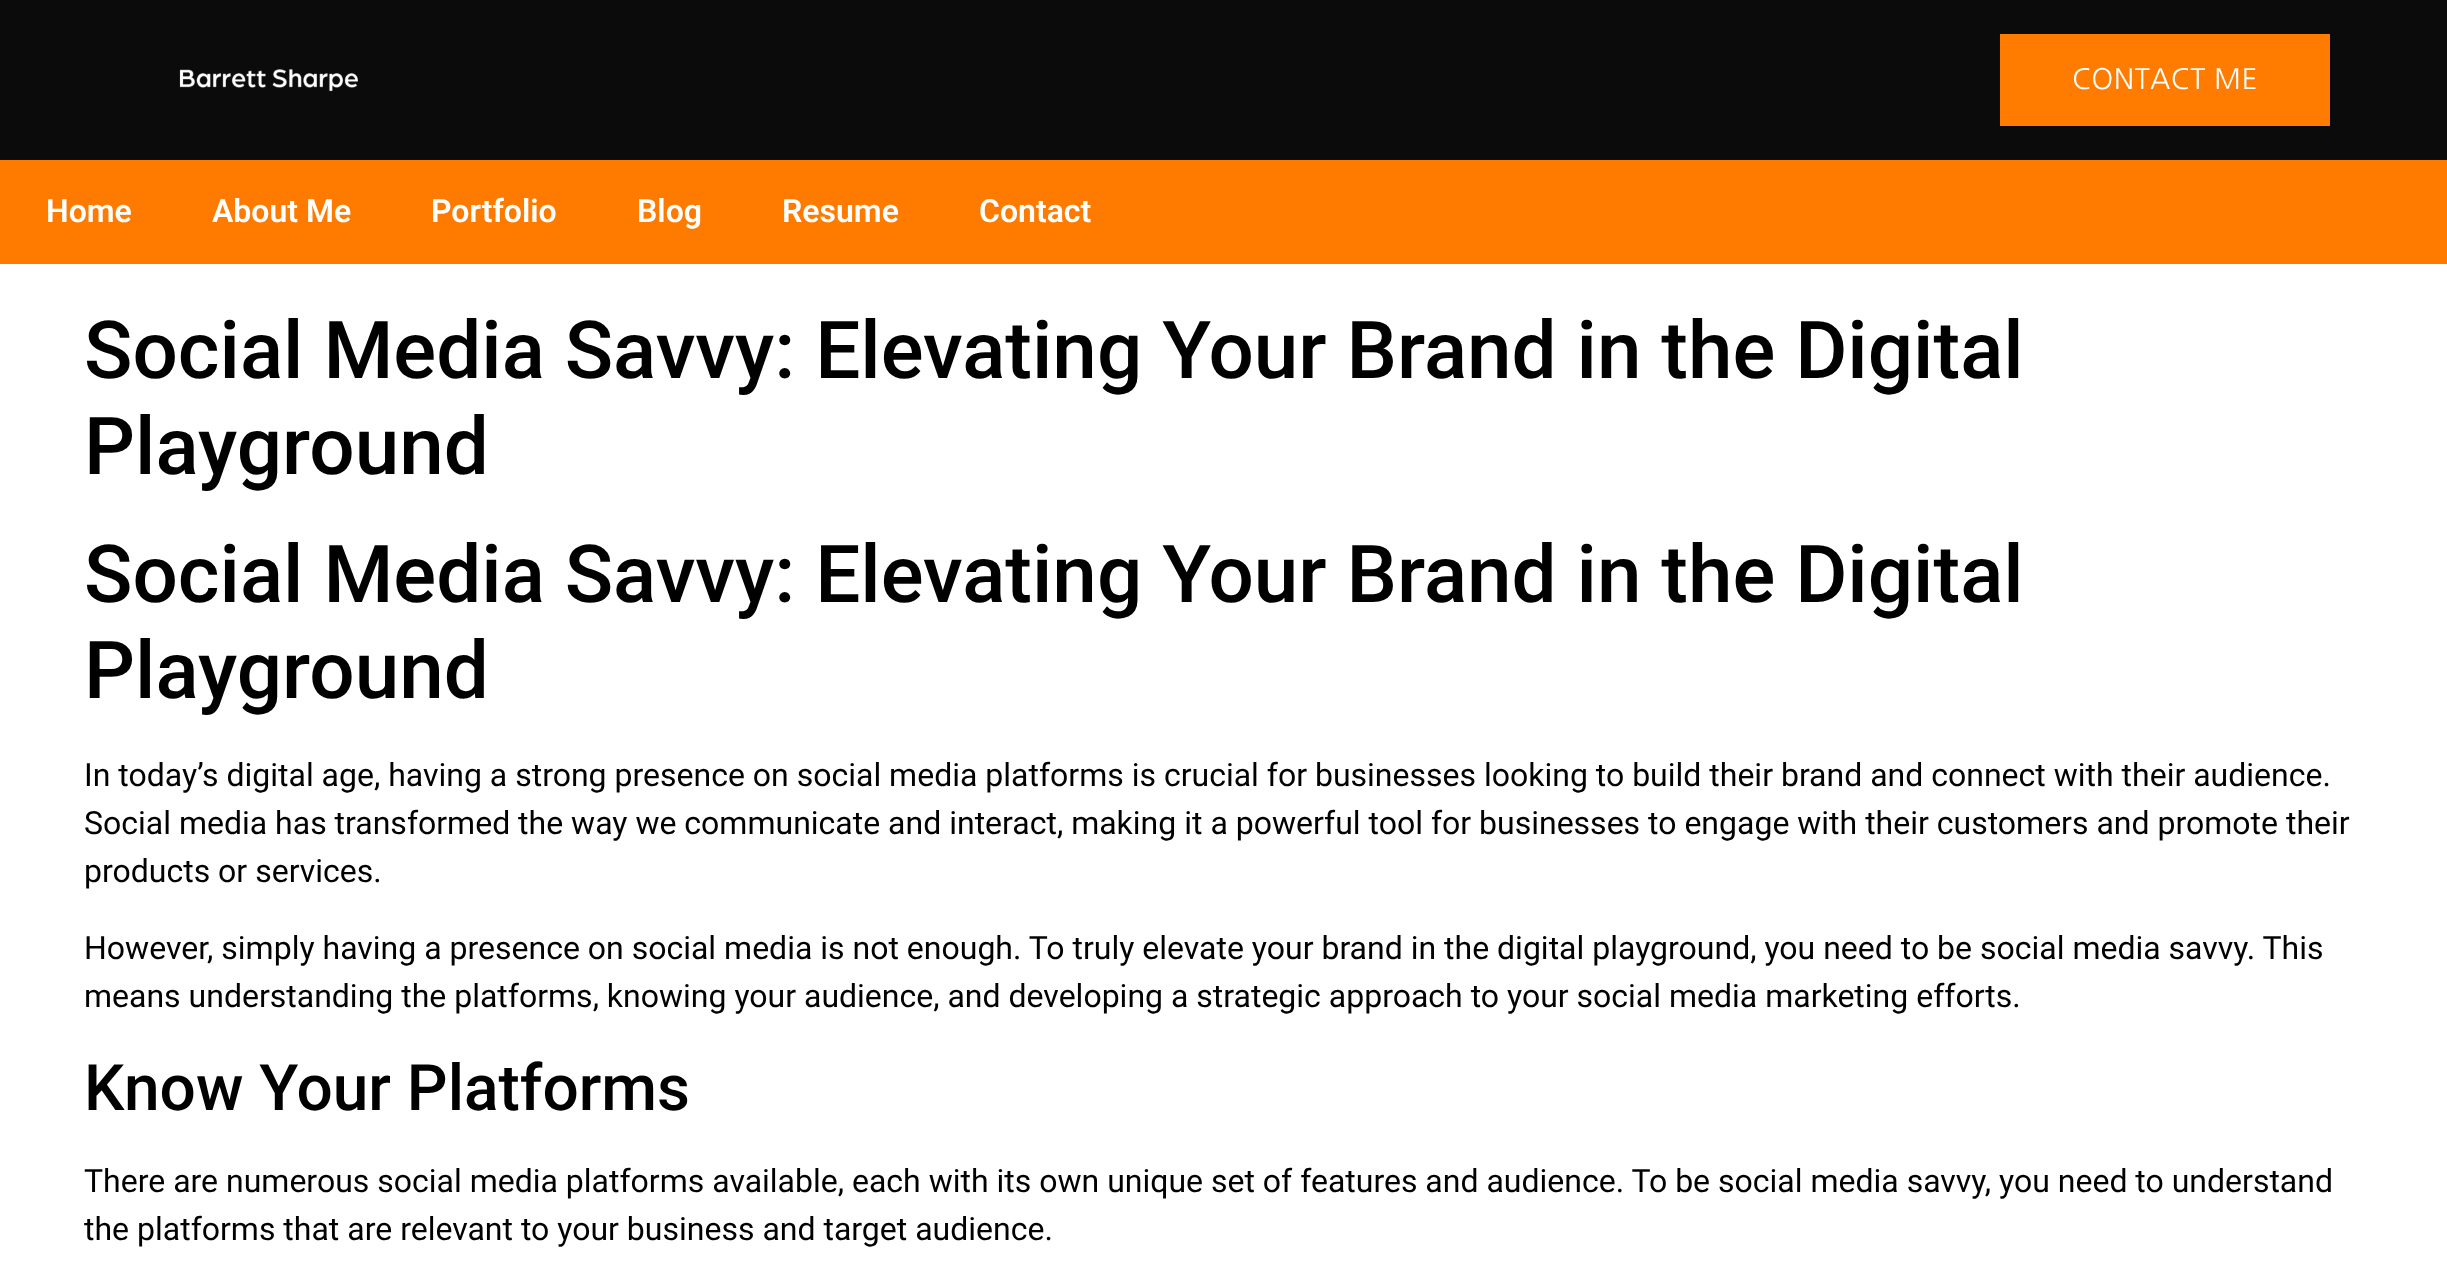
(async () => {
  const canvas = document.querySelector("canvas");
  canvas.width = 2447;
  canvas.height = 1274;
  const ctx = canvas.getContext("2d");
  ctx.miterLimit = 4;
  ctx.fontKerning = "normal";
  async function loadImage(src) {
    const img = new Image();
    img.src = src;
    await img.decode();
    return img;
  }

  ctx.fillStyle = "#ffffff";
  ctx.fillRect(0, 0, 2447, 1274);
  ctx.fillStyle = "#0b0b0b";
  ctx.fillRect(0, 0, 2447, 160);
  ctx.drawImage(await loadImage("img/1.png"), 179, 69, 179, 23);
  ctx.fillStyle = "#ff7c00";
  ctx.fillRect(2000, 34, 330, 92);
  ctx.fillStyle = "#ff7b00";
  ctx.fillRect(0, 160, 2447, 104);
  ctx.letterSpacing = "0.4px";
  ctx.font = "28px NanumGothic";
  ctx.fillStyle = "#ffffff";
  ctx.fillText("CONTACT ME", 2072, 89);
  ctx.letterSpacing = "0px";
  ctx.font = "600 32px Roboto";
  for (const [text, x, y] of [
    ["Home", 46, 222],
    ["About Me", 212, 222],
    ["Portfolio", 431, 222],
    ["Blog", 637, 222],
    ["Resume", 782, 222],
    ["Contact", 979, 222],
  ]) {
    ctx.fillText(text, x, y);
  }
  ctx.font = "500 80px Roboto";
  ctx.fillStyle = "#000000";
  for (const [text, x, y] of [
    ["Social Media Savvy: Elevating Your Brand in the Digital", 84, 378],
    ["Playground", 84, 474],
    ["Social Media Savvy: Elevating Your Brand in the Digital", 84, 602],
    ["Playground", 84, 698],
  ]) {
    ctx.fillText(text, x, y);
  }
  ctx.font = "32px Roboto";
  for (const [text, x, y] of [
    ["In today’s digital age, having a strong presence on social media platforms is crucial for businesses looking to build their brand and connect with their audience.", 84, 786],
    ["Social media has transformed the way we communicate and interact, making it a powerful tool for businesses to engage with their customers and promote their", 84, 834],
    ["products or services.", 84, 882],
    ["However, simply having a presence on social media is not enough. To truly elevate your brand in the digital playground, you need to be social media savvy. This", 84, 959],
    ["means understanding the platforms, knowing your audience, and developing a strategic approach to your social media marketing efforts.", 84, 1007],
  ]) {
    ctx.fillText(text, x, y);
  }
  ctx.font = "500 64px Roboto";
  ctx.fillText("Know Your Platforms", 84, 1110);
  ctx.font = "32px Roboto";
  ctx.fillText("There are numerous social media platforms available, each with its own unique set of features and audience. To be social media savvy, you need to understand", 84, 1192);
  ctx.fillText("the platforms that are relevant to your business and target audience.", 84, 1240);
})();
